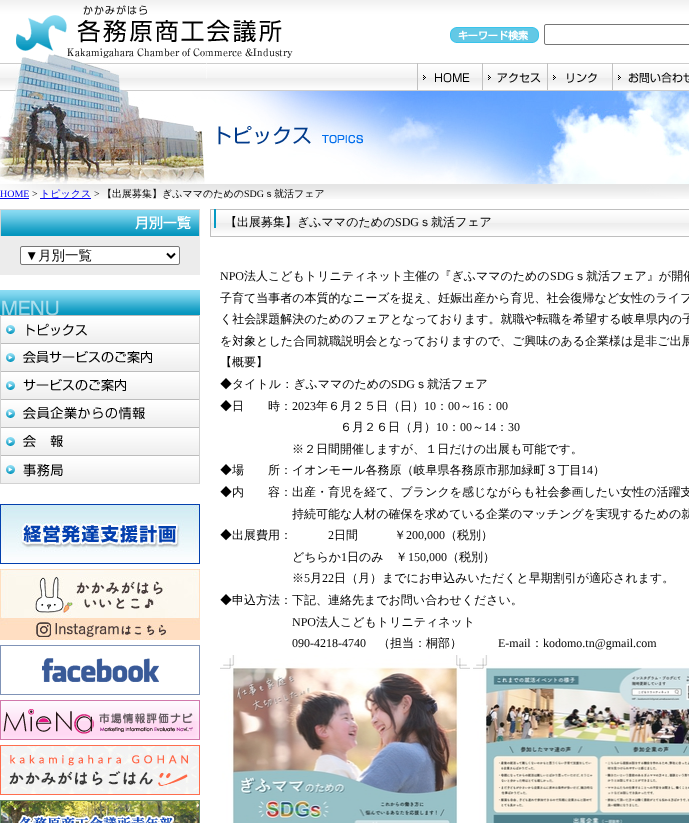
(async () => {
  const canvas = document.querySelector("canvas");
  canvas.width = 689;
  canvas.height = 823;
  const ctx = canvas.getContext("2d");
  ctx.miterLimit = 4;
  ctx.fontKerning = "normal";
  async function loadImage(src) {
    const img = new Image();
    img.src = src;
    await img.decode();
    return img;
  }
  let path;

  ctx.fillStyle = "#ffffff";
  ctx.fillRect(0, 0, 689, 823);
  ctx.drawImage(await loadImage("img/1.png"), 0, 0, 689, 91);
  ctx.drawImage(await loadImage("img/2.png"), 16, 5, 277, 58);
  ctx.drawImage(await loadImage("img/3.png"), 450, 27, 89, 16);
  ctx.beginPath();
  ctx.roundRect(544.5, 24.5, 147, 20, 1.5);
  ctx.strokeStyle = "#767676";
  ctx.stroke();
  ctx.drawImage(await loadImage("img/4.png"), 15, 63, 192, 28);
  ctx.drawImage(await loadImage("img/5.png"), 417, 63, 66, 27);
  ctx.drawImage(await loadImage("img/6.png"), 488, 63, 60, 27);
  ctx.drawImage(await loadImage("img/7.png"), 553, 63, 60, 27);
  ctx.drawImage(await loadImage("img/8.png"), 618, 72, 71, 11);
  ctx.drawImage(await loadImage("img/9.png"), 0, 91, 689, 93);
  ctx.drawImage(await loadImage("img/10.png"), 0, 184, 689, 15);
  ctx.fillStyle = "#0000ee";
  ctx.fillRect(0, 198, 29, 1);
  ctx.fillRect(40, 198, 51, 1);
  ctx.drawImage(await loadImage("img/11.png"), 0, 209, 200, 27);
  ctx.fillStyle = "#ececec";
  ctx.fillRect(0, 236, 200, 39);
  ctx.fillStyle = "#ffffff";
  ctx.beginPath();
  ctx.roundRect(20.5, 246.5, 159, 18, 1.5);
  ctx.fill();
  ctx.stroke();
  path = new Path2D("M167 253.5L171 257.5L175 253.5");
  ctx.strokeStyle = "#000000";
  ctx.lineWidth = 2;
  ctx.stroke(path);
  ctx.drawImage(await loadImage("img/12.png"), 0, 290, 200, 26);
  ctx.drawImage(await loadImage("img/13.png"), 0, 316, 200, 28);
  ctx.drawImage(await loadImage("img/14.png"), 0, 344, 200, 28);
  ctx.drawImage(await loadImage("img/15.png"), 0, 372, 200, 28);
  ctx.drawImage(await loadImage("img/16.png"), 0, 400, 200, 28);
  ctx.drawImage(await loadImage("img/17.png"), 0, 428, 200, 28);
  ctx.drawImage(await loadImage("img/18.png"), 0, 456, 200, 28);
  ctx.drawImage(await loadImage("img/19.png"), 0, 504, 200, 60);
  ctx.drawImage(await loadImage("img/20.png"), 0, 569, 200, 71);
  ctx.drawImage(await loadImage("img/21.png"), 0, 645, 200, 50);
  ctx.drawImage(await loadImage("img/22.png"), 0, 700, 200, 40);
  ctx.drawImage(await loadImage("img/23.png"), 0, 745, 200, 50);
  ctx.drawImage(await loadImage("img/24.png"), 0, 800, 200, 23);
  ctx.drawImage(await loadImage("img/25.png"), 210, 209, 479, 27);
  ctx.fillStyle = "#bfbfbf";
  ctx.fillRect(210, 236, 479, 1);
  ctx.drawImage(await loadImage("img/26.png"), 220, 655, 250, 168);
  ctx.drawImage(await loadImage("img/27.png"), 473, 655, 216, 168);
  ctx.font = "10px Liberation Serif";
  ctx.fillStyle = "#0000ee";
  ctx.fillText("HOME", 0, 197);
  ctx.fillStyle = "#000000";
  ctx.fillText(">", 32, 197);
  ctx.font = "500 10px WenQuanYi Zen Hei";
  ctx.fillStyle = "#0000ee";
  ctx.fillText("トピックス", 40, 197);
  ctx.font = "10px Liberation Serif";
  ctx.fillStyle = "#000000";
  ctx.fillText(">", 94, 197);
  ctx.font = "500 10px WenQuanYi Zen Hei";
  ctx.fillText("【出展募集】ぎふママのための", 102, 197);
  ctx.font = "10px Liberation Serif";
  ctx.fillText("SDG", 244, 197);
  ctx.font = "500 10px WenQuanYi Zen Hei";
  ctx.fillText("ｓ就活フェア", 264, 197);
  ctx.font = "13.5px Liberation Sans";
  ctx.fillText("▼", 25, 260);
  ctx.font = "500 13.5px WenQuanYi Zen Hei";
  ctx.fillText("月別一覧", 38, 260);
  ctx.font = "500 12px WenQuanYi Zen Hei";
  ctx.fillText("【出展募集】ぎふママのための", 225, 226);
  ctx.font = "12px Liberation Serif";
  ctx.fillText("SDG", 395, 226);
  ctx.font = "500 12px WenQuanYi Zen Hei";
  ctx.fillText("ｓ就活フェア", 419, 226);
  ctx.font = "12px Liberation Serif";
  ctx.fillText("NPO", 220, 280);
  ctx.font = "500 12px WenQuanYi Zen Hei";
  ctx.fillText("法人こどもトリニティネット主催の『ぎふママのための", 244, 280);
  ctx.font = "12px Liberation Serif";
  ctx.fillText("SDG", 550, 280);
  ctx.font = "500 12px WenQuanYi Zen Hei";
  for (const [text, x, y] of [
    ["ｓ就活フェア』が開催", 574, 280],
    ["子育て当事者の本質的なニーズを捉え、妊娠出産から育児、社会復帰など女性のライフ", 220, 302],
    ["く社会課題解決のためのフェアとなっております。就職や転職を希望する岐阜県内の子", 220, 323],
    ["を対象とした合同就職説明会となっておりますので、ご興味のある企業様は是非ご出展", 220, 345],
    ["【概要】", 220, 366],
    ["◆タイトル：ぎふママのための", 220, 388],
  ]) {
    ctx.fillText(text, x, y);
  }
  ctx.font = "12px Liberation Serif";
  ctx.fillText("SDG", 391, 388);
  ctx.font = "500 12px WenQuanYi Zen Hei";
  for (const [text, x, y] of [
    ["ｓ就活フェア", 415, 388],
    ["◆日", 220, 410],
    ["時：", 268, 410],
  ]) {
    ctx.fillText(text, x, y);
  }
  ctx.font = "12px Liberation Serif";
  ctx.fillText("2023", 292, 410);
  ctx.font = "500 12px WenQuanYi Zen Hei";
  ctx.fillText("年６月２５日（日）", 316, 410);
  ctx.font = "12px Liberation Serif";
  ctx.fillText("10", 424, 410);
  ctx.font = "500 12px WenQuanYi Zen Hei";
  ctx.fillText("：", 436, 410);
  ctx.font = "12px Liberation Serif";
  ctx.fillText("00", 448, 410);
  ctx.font = "500 12px WenQuanYi Zen Hei";
  ctx.fillText("～", 460, 410);
  ctx.font = "12px Liberation Serif";
  ctx.fillText("16", 472, 410);
  ctx.font = "500 12px WenQuanYi Zen Hei";
  ctx.fillText("：", 484, 410);
  ctx.font = "12px Liberation Serif";
  ctx.fillText("00", 496, 410);
  ctx.font = "500 12px WenQuanYi Zen Hei";
  ctx.fillText("６月２６日（月）", 340, 431);
  ctx.font = "12px Liberation Serif";
  ctx.fillText("10", 436, 431);
  ctx.font = "500 12px WenQuanYi Zen Hei";
  ctx.fillText("：", 448, 431);
  ctx.font = "12px Liberation Serif";
  ctx.fillText("00", 460, 431);
  ctx.font = "500 12px WenQuanYi Zen Hei";
  ctx.fillText("～", 472, 431);
  ctx.font = "12px Liberation Serif";
  ctx.fillText("14", 484, 431);
  ctx.font = "500 12px WenQuanYi Zen Hei";
  ctx.fillText("：", 496, 431);
  ctx.font = "12px Liberation Serif";
  ctx.fillText("30", 508, 431);
  ctx.font = "500 12px WenQuanYi Zen Hei";
  for (const [text, x, y] of [
    ["※２日間開催しますが、１日だけの出展も可能です。", 292, 453],
    ["◆場", 220, 474],
    ["所：イオンモール各務原（岐阜県各務原市那加緑町３丁目", 268, 474],
  ]) {
    ctx.fillText(text, x, y);
  }
  ctx.font = "12px Liberation Serif";
  ctx.fillText("14", 581, 474);
  ctx.font = "500 12px WenQuanYi Zen Hei";
  for (const [text, x, y] of [
    ["）", 593, 474],
    ["◆内　　容：出産・育児を経て、ブランクを感じながらも社会参画したい女性の活躍支", 220, 496],
    ["持続可能な人材の確保を求めている企業のマッチングを実現するための就", 292, 518],
    ["◆出展費用：", 220, 539],
  ]) {
    ctx.fillText(text, x, y);
  }
  ctx.font = "12px Liberation Serif";
  ctx.fillText("2", 328, 539);
  ctx.font = "500 12px WenQuanYi Zen Hei";
  ctx.fillText("日間　　　￥", 334, 539);
  ctx.font = "12px Liberation Serif";
  ctx.fillText("200,000", 406, 539);
  ctx.font = "500 12px WenQuanYi Zen Hei";
  ctx.fillText("（税別）", 445, 539);
  ctx.fillText("どちらか", 292, 561);
  ctx.font = "12px Liberation Serif";
  ctx.fillText("1", 341, 561);
  ctx.font = "500 12px WenQuanYi Zen Hei";
  ctx.fillText("日のみ　￥", 347, 561);
  ctx.font = "12px Liberation Serif";
  ctx.fillText("150,000", 408, 561);
  ctx.font = "500 12px WenQuanYi Zen Hei";
  ctx.fillText("（税別）", 447, 561);
  ctx.fillText("※", 292, 582);
  ctx.font = "12px Liberation Serif";
  ctx.fillText("5", 304, 582);
  ctx.font = "500 12px WenQuanYi Zen Hei";
  ctx.fillText("月", 310, 582);
  ctx.font = "12px Liberation Serif";
  ctx.fillText("22", 322, 582);
  ctx.font = "500 12px WenQuanYi Zen Hei";
  ctx.fillText("日（月）までにお申込みいただくと早期割引が適応されます。", 334, 582);
  ctx.fillText("◆申込方法：下記、連絡先までお問い合わせください。", 220, 604);
  ctx.font = "12px Liberation Serif";
  ctx.fillText("NPO", 292, 626);
  ctx.font = "500 12px WenQuanYi Zen Hei";
  ctx.fillText("法人こどもトリニティネット", 316, 626);
  ctx.font = "12px Liberation Serif";
  ctx.fillText("090-4218-4740", 292, 647);
  ctx.font = "500 12px WenQuanYi Zen Hei";
  ctx.fillText("（担当：桐部）", 378, 647);
  ctx.font = "12px Liberation Serif";
  ctx.fillText("E-mail", 498, 647);
  ctx.font = "500 12px WenQuanYi Zen Hei";
  ctx.fillText("：", 531, 647);
  ctx.font = "12px Liberation Serif";
  ctx.fillText("kodomo.tn@gmail.com", 543, 647);
})();
